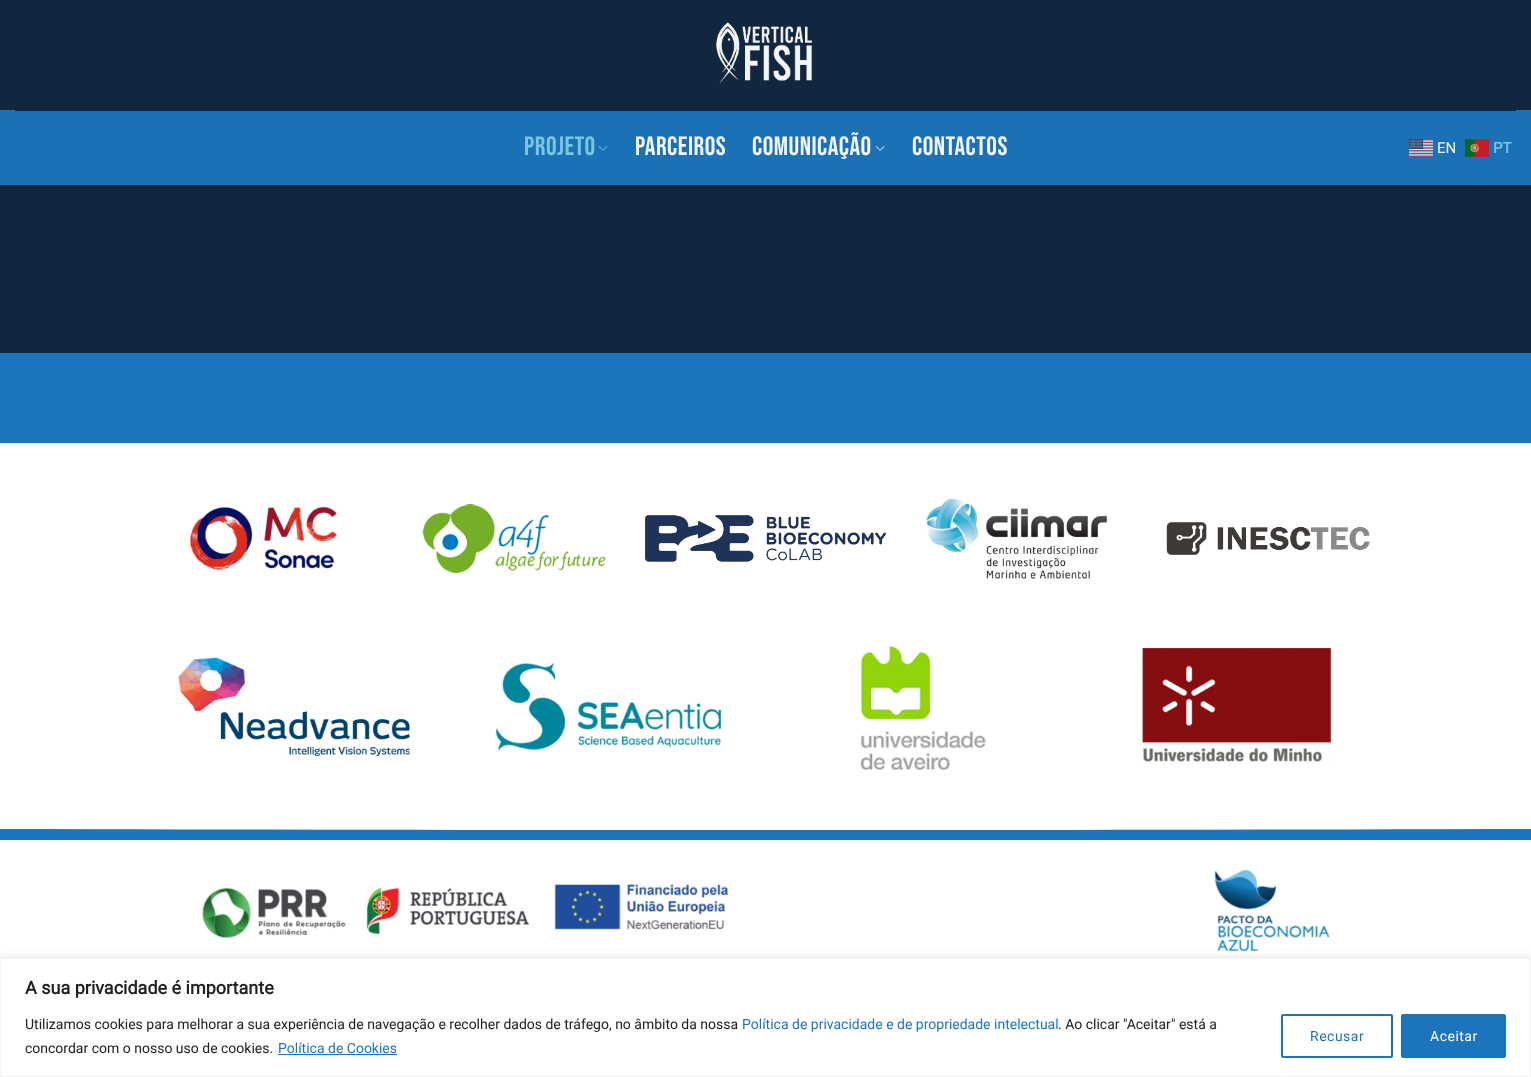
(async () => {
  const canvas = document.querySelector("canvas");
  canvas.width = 1531;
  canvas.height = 1077;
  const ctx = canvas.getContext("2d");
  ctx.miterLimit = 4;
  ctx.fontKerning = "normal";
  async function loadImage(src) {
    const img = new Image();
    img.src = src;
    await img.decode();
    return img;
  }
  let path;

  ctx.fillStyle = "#ffffff";
  ctx.fillRect(0, 0, 1531, 1077);
  ctx.fillStyle = "#11273f";
  ctx.fillRect(0, 0, 1531, 353);
  ctx.drawImage(await loadImage("img/1.png"), 716, 22, 96, 61);
  ctx.fillStyle = "#1b71b6";
  ctx.fillRect(0, 110, 1531, 75);
  ctx.fillStyle = "#11273f";
  ctx.fillRect(15, 110, 1501, 1);
  ctx.drawImage(await loadImage("img/2.png"), 598, 146, 10, 5);
  ctx.drawImage(await loadImage("img/3.png"), 875, 145, 10, 6);
  ctx.drawImage(await loadImage("img/4.png"), 1409, 139, 24, 18);
  ctx.drawImage(await loadImage("img/5.png"), 1465, 139, 24, 18);
  ctx.fillStyle = "#1d76bc";
  ctx.fillRect(0, 353, 1531, 90);
  ctx.drawImage(await loadImage("img/6.png"), 190, 506, 148, 65);
  ctx.drawImage(await loadImage("img/7.png"), 422, 504, 184, 69);
  ctx.drawImage(await loadImage("img/8.png"), 645, 514, 241, 48);
  ctx.drawImage(await loadImage("img/9.png"), 926, 498, 181, 81);
  ctx.drawImage(await loadImage("img/10.png"), 1166, 522, 204, 33);
  ctx.drawImage(await loadImage("img/11.png"), 178, 657, 232, 99);
  ctx.drawImage(await loadImage("img/12.png"), 495, 662, 227, 89);
  ctx.drawImage(await loadImage("img/13.png"), 860, 645, 126, 126);
  ctx.drawImage(await loadImage("img/14.png"), 1142, 648, 190, 114);
  ctx.fillStyle = "#1c75bc";
  path = new Path2D("M-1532 820C-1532 820-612 830 766 830C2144 830 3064 820 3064 820V840H-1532Z");
  ctx.fill(path);
  ctx.drawImage(await loadImage("img/15.png"), 202, 869, 1128, 83);
  ctx.fillStyle = "rgba(172, 171, 171, 0.3)";
  ctx.filter = "blur(5px)";
  ctx.beginPath();
  ctx.rect(0, 957, 1531, 119);
  ctx.fill();
  ctx.filter = "none";
  ctx.fillStyle = "#ffffff";
  ctx.beginPath();
  ctx.rect(0.5, 958.5, 1530, 118);
  ctx.fill();
  ctx.strokeStyle = "#f4f4f4";
  ctx.stroke();
  ctx.fillStyle = "#1c75bc";
  ctx.fillRect(278, 1054, 119, 1);
  ctx.beginPath();
  ctx.roundRect(1282, 1015, 110, 42, 1);
  ctx.strokeStyle = "#1c75bc";
  ctx.lineWidth = 2;
  ctx.stroke();
  ctx.beginPath();
  ctx.roundRect(1402, 1015, 103, 42, 1);
  ctx.fill();
  ctx.stroke();
  ctx.letterSpacing = "0.5px";
  ctx.font = "26.5px Bebas Neue";
  ctx.fillStyle = "#7ac6e1";
  ctx.fillText("PROJETO", 524, 155);
  ctx.fillStyle = "#f3f4f5";
  for (const [text, x, y] of [
    ["PARCEIROS", 635, 155],
    ["COMUNICAÇÃO", 752, 155],
    ["CONTACTOS", 912, 155],
  ]) {
    ctx.fillText(text, x, y);
  }
  ctx.letterSpacing = "0px";
  ctx.font = "15px Roboto";
  ctx.fillText("EN", 1437, 153);
  ctx.font = "bold 15px Roboto";
  ctx.fillStyle = "#7ac6e1";
  ctx.fillText("PT", 1493, 153);
  ctx.font = "bold 18px Roboto";
  ctx.fillStyle = "#212121";
  ctx.fillText("A sua privacidade é importante", 25, 994);
  ctx.font = "14px Roboto";
  ctx.fillText("Utilizamos cookies para melhorar a sua experiência de navegação e recolher dados de tráfego, no âmbito da nossa", 25, 1029);
  ctx.fillStyle = "#1c75bc";
  ctx.fillText("Política de privacidade e de propriedade intelectual", 742, 1029);
  ctx.fillStyle = "#212121";
  ctx.fillText(". Ao clicar \"Aceitar\" está a", 1058, 1029);
  ctx.fillText("concordar com o nosso uso de cookies.", 25, 1053);
  ctx.fillStyle = "#1c75bc";
  ctx.fillText("Política de Cookies", 278, 1053);
  ctx.letterSpacing = "0.5px";
  ctx.fillText("Recusar", 1310, 1041);
  ctx.fillStyle = "#ffffff";
  ctx.fillText("Aceitar", 1430, 1041);
})();
